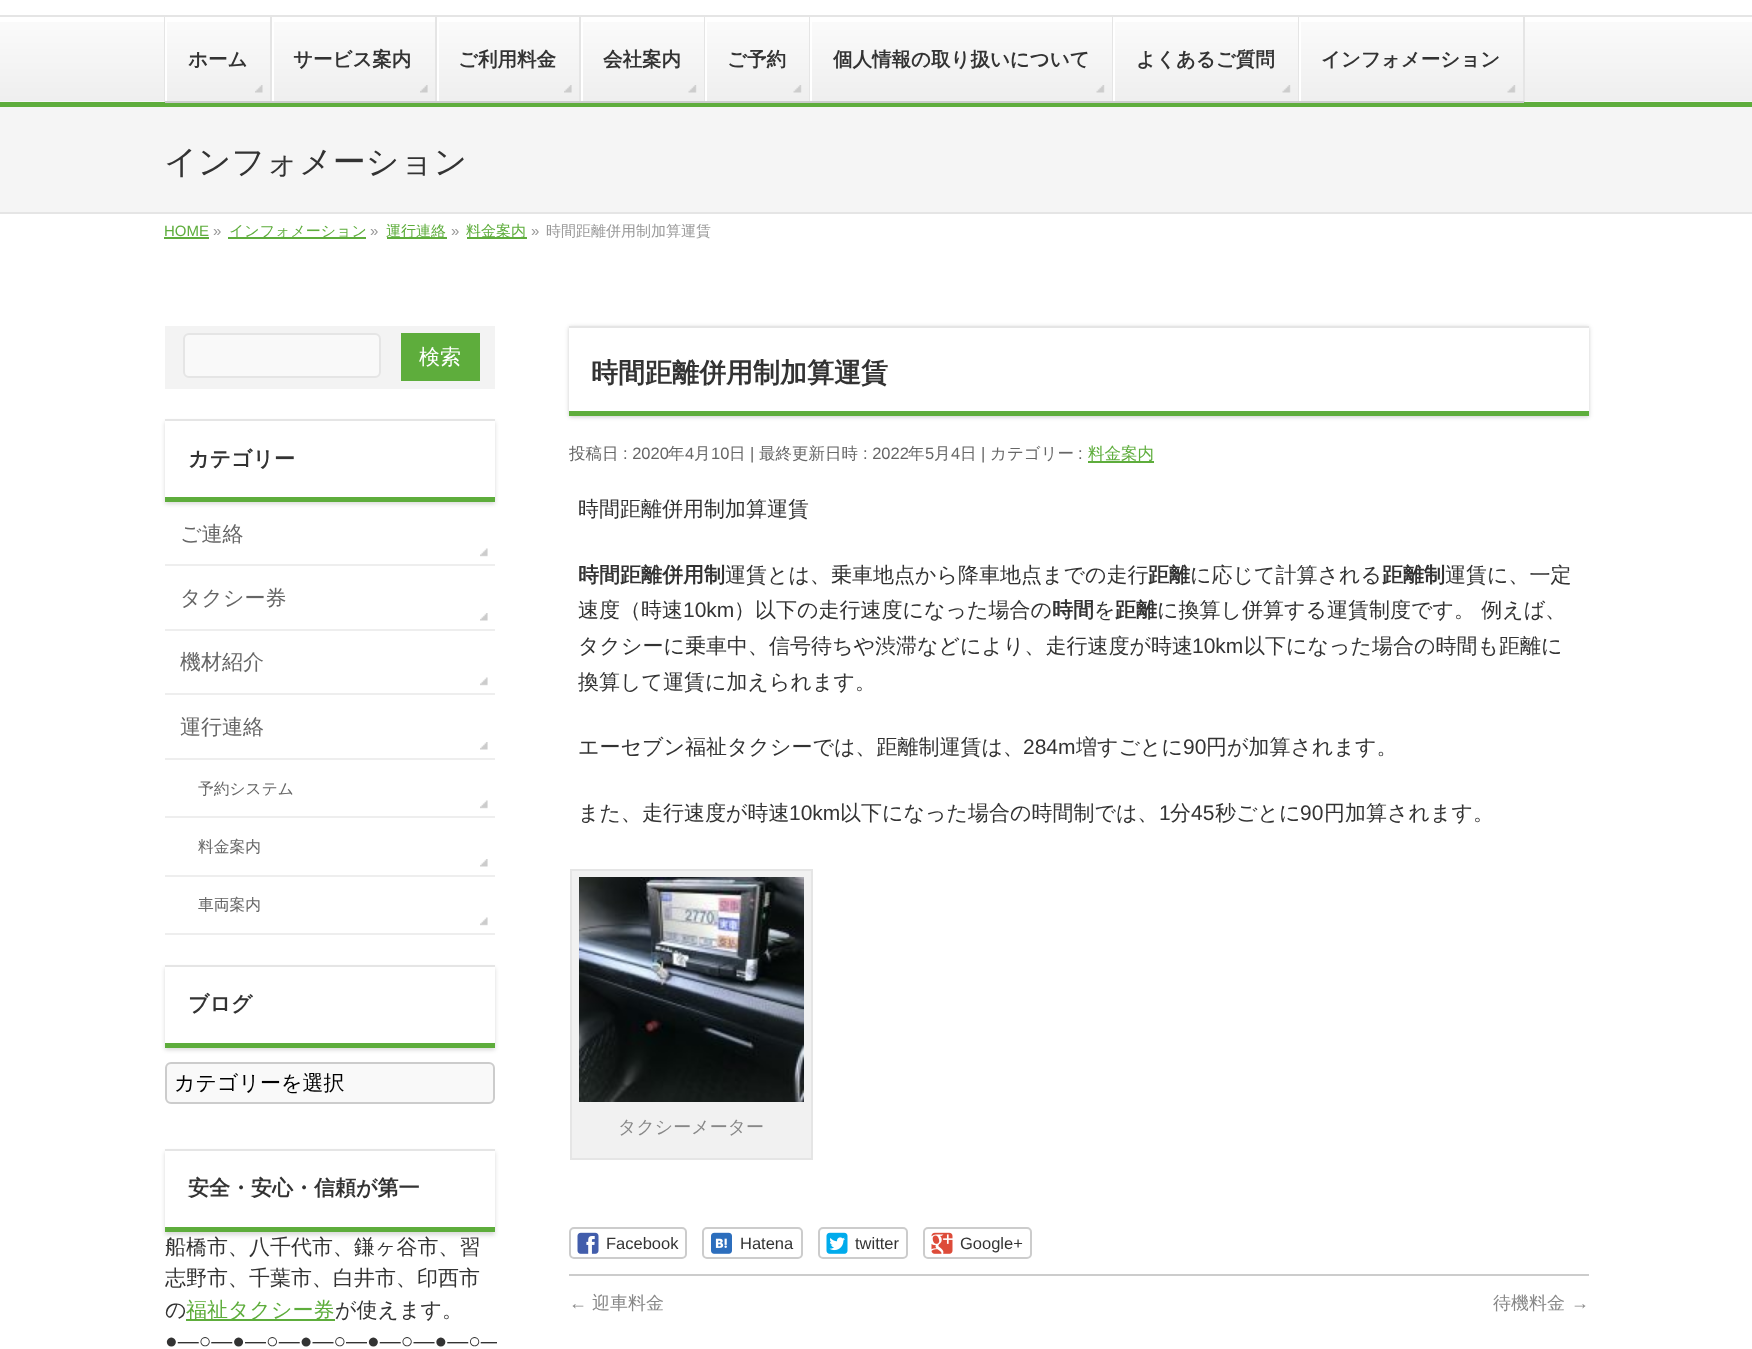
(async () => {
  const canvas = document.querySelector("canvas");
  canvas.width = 1752;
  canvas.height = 1349;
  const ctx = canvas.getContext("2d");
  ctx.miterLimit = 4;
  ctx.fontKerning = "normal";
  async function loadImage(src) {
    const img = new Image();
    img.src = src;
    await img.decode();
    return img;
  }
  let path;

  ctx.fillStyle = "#ffffff";
  ctx.fillRect(0, 0, 1752, 1349);
  ctx.drawImage(await loadImage("img/1.png"), 0, 22, 1752, 80);
  for (const [x, y, w, h, color] of [
    [0, 15, 1752, 2, "#e5e5e5"],
    [0, 102, 1752, 5, "#5ead3c"],
    [164, 17, 1, 85, "#e5e5e5"],
    [165, 17, 2, 85, "#ffffff"],
  ]) {
    ctx.fillStyle = color;
    ctx.fillRect(x, y, w, h);
  }
  ctx.drawImage(await loadImage("img/2.png"), 255, 85, 8, 8);
  for (const [x, y, w, h, color] of [
    [270, 17, 2, 85, "#e5e5e5"],
    [165, 101, 107, 2, "#cccccc"],
    [272, 17, 2, 85, "#ffffff"],
  ]) {
    ctx.fillStyle = color;
    ctx.fillRect(x, y, w, h);
  }
  ctx.drawImage(await loadImage("img/3.png"), 420, 85, 8, 8);
  for (const [x, y, w, h, color] of [
    [435, 17, 2, 85, "#e5e5e5"],
    [272, 101, 165, 2, "#cccccc"],
    [437, 17, 2, 85, "#ffffff"],
  ]) {
    ctx.fillStyle = color;
    ctx.fillRect(x, y, w, h);
  }
  ctx.drawImage(await loadImage("img/3.png"), 564, 85, 8, 8);
  for (const [x, y, w, h, color] of [
    [579, 17, 2, 85, "#e5e5e5"],
    [437, 101, 144, 2, "#cccccc"],
    [581, 17, 2, 85, "#ffffff"],
  ]) {
    ctx.fillStyle = color;
    ctx.fillRect(x, y, w, h);
  }
  ctx.drawImage(await loadImage("img/4.png"), 688, 85, 9, 8);
  for (const [x, y, w, h, color] of [
    [704, 17, 1, 85, "#e5e5e5"],
    [581, 101, 124, 2, "#cccccc"],
    [705, 17, 2, 85, "#ffffff"],
  ]) {
    ctx.fillStyle = color;
    ctx.fillRect(x, y, w, h);
  }
  ctx.drawImage(await loadImage("img/5.png"), 793, 85, 9, 8);
  for (const [x, y, w, h, color] of [
    [809, 17, 1, 85, "#e5e5e5"],
    [705, 101, 105, 2, "#cccccc"],
    [810, 17, 2, 85, "#ffffff"],
  ]) {
    ctx.fillStyle = color;
    ctx.fillRect(x, y, w, h);
  }
  ctx.drawImage(await loadImage("img/5.png"), 1096, 85, 9, 8);
  for (const [x, y, w, h, color] of [
    [1112, 17, 1, 85, "#e5e5e5"],
    [810, 101, 303, 2, "#cccccc"],
    [1113, 17, 2, 85, "#ffffff"],
  ]) {
    ctx.fillStyle = color;
    ctx.fillRect(x, y, w, h);
  }
  ctx.drawImage(await loadImage("img/4.png"), 1282, 85, 9, 8);
  for (const [x, y, w, h, color] of [
    [1298, 17, 1, 85, "#e5e5e5"],
    [1113, 101, 186, 2, "#cccccc"],
    [1299, 17, 2, 85, "#ffffff"],
  ]) {
    ctx.fillStyle = color;
    ctx.fillRect(x, y, w, h);
  }
  ctx.drawImage(await loadImage("img/4.png"), 1507, 85, 9, 8);
  for (const [x, y, w, h, color] of [
    [1523, 17, 2, 85, "#e5e5e5"],
    [1299, 101, 225, 2, "#cccccc"],
    [0, 107, 1752, 105, "#f5f5f5"],
    [0, 212, 1752, 2, "#e5e5e5"],
    [164, 237, 45, 2, "#5ead3c"],
    [228, 237, 138, 2, "#5ead3c"],
    [387, 237, 60, 2, "#5ead3c"],
    [467, 237, 60, 2, "#5ead3c"],
    [165, 326, 330, 63, "#f3f3f3"],
  ]) {
    ctx.fillStyle = color;
    ctx.fillRect(x, y, w, h);
  }
  ctx.fillStyle = "#f9f9f9";
  ctx.beginPath();
  ctx.roundRect(184, 334, 196, 43, 5);
  ctx.fill();
  ctx.strokeStyle = "#e5e5e5";
  ctx.lineWidth = 2;
  ctx.stroke();
  ctx.fillStyle = "#5ead3c";
  ctx.fillRect(401, 333, 79, 48);
  ctx.save();
  path = new Path2D("M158 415H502V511H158ZM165 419H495V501H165Z");
  ctx.clip(path, "evenodd");
  ctx.fillStyle = "rgba(0, 0, 0, 0.15)";
  ctx.filter = "blur(2px)";
  ctx.beginPath();
  ctx.rect(165, 422, 330, 82);
  ctx.fill();
  ctx.filter = "none";
  ctx.restore();
  for (const [x, y, w, h, color] of [
    [165, 419, 330, 2, "#e5e5e5"],
    [165, 497, 330, 5, "#5ead3c"],
    [165, 564, 330, 2, "#eeeeee"],
  ]) {
    ctx.fillStyle = color;
    ctx.fillRect(x, y, w, h);
  }
  ctx.drawImage(await loadImage("img/6.png"), 480, 548, 8, 9);
  ctx.fillRect(165, 629, 330, 2);
  ctx.drawImage(await loadImage("img/7.png"), 480, 613, 8, 8);
  ctx.fillRect(165, 693, 330, 2);
  ctx.drawImage(await loadImage("img/6.png"), 480, 677, 8, 9);
  ctx.fillRect(165, 933, 330, 2);
  ctx.drawImage(await loadImage("img/7.png"), 480, 742, 8, 8);
  ctx.fillRect(165, 758, 330, 2);
  ctx.drawImage(await loadImage("img/6.png"), 480, 800, 8, 9);
  ctx.fillRect(165, 816, 330, 2);
  ctx.drawImage(await loadImage("img/7.png"), 480, 859, 8, 8);
  ctx.fillRect(165, 875, 330, 2);
  ctx.drawImage(await loadImage("img/6.png"), 480, 917, 8, 9);
  ctx.save();
  path = new Path2D("M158 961H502V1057H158ZM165 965H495V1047H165Z");
  ctx.clip(path, "evenodd");
  ctx.fillStyle = "rgba(0, 0, 0, 0.15)";
  ctx.filter = "blur(2px)";
  ctx.beginPath();
  ctx.rect(165, 968, 330, 82);
  ctx.fill();
  ctx.filter = "none";
  ctx.restore();
  ctx.fillStyle = "#e5e5e5";
  ctx.fillRect(165, 965, 330, 2);
  ctx.fillStyle = "#5ead3c";
  ctx.fillRect(165, 1043, 330, 5);
  ctx.fillStyle = "#f9f9f9";
  ctx.beginPath();
  ctx.roundRect(166, 1063, 328, 40, 5);
  ctx.fill();
  ctx.strokeStyle = "#cccccc";
  ctx.stroke();
  ctx.save();
  path = new Path2D("M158 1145H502V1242H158ZM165 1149H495V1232H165Z");
  ctx.clip(path, "evenodd");
  ctx.fillStyle = "rgba(0, 0, 0, 0.15)";
  ctx.filter = "blur(2px)";
  ctx.beginPath();
  ctx.rect(165, 1152, 330, 83);
  ctx.fill();
  ctx.filter = "none";
  ctx.restore();
  for (const [x, y, w, h, color] of [
    [165, 1149, 330, 2, "#e5e5e5"],
    [165, 1227, 330, 5, "#5ead3c"],
    [186, 1319, 149, 2, "#5ead3c"],
  ]) {
    ctx.fillStyle = color;
    ctx.fillRect(x, y, w, h);
  }
  ctx.save();
  path = new Path2D("M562 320H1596V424H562ZM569 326H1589V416H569Z");
  ctx.clip(path, "evenodd");
  ctx.fillStyle = "rgba(0, 0, 0, 0.2)";
  ctx.filter = "blur(2px)";
  ctx.beginPath();
  ctx.rect(569, 327, 1020, 90);
  ctx.fill();
  ctx.filter = "none";
  ctx.restore();
  for (const [x, y, w, h, color] of [
    [569, 326, 1020, 2, "#e5e5e5"],
    [569, 411, 1020, 5, "#5ead3c"],
    [1088, 461, 66, 2, "#5ead3c"],
  ]) {
    ctx.fillStyle = color;
    ctx.fillRect(x, y, w, h);
  }
  ctx.fillStyle = "#f1f1f1";
  ctx.beginPath();
  ctx.rect(571, 870, 241, 289);
  ctx.fill();
  ctx.strokeStyle = "#e5e5e5";
  ctx.stroke();
  ctx.drawImage(await loadImage("img/8.png"), 579, 877, 225, 225);
  ctx.beginPath();
  ctx.roundRect(570, 1228, 116, 30, 4);
  ctx.strokeStyle = "#cccccc";
  ctx.stroke();
  ctx.drawImage(await loadImage("img/9.png"), 577, 1232, 22, 22);
  ctx.beginPath();
  ctx.roundRect(703, 1228, 99, 30, 4);
  ctx.stroke();
  ctx.drawImage(await loadImage("img/10.png"), 711, 1232, 21, 22);
  ctx.beginPath();
  ctx.roundRect(819, 1228, 88, 30, 4);
  ctx.stroke();
  ctx.drawImage(await loadImage("img/11.png"), 826, 1232, 22, 22);
  ctx.beginPath();
  ctx.roundRect(924, 1228, 107, 30, 4);
  ctx.stroke();
  ctx.drawImage(await loadImage("img/12.png"), 931, 1232, 22, 22);
  ctx.fillStyle = "#cccccc";
  ctx.fillRect(569, 1274, 1020, 2);
  ctx.font = "bold 19.5px WenQuanYi Zen Hei";
  ctx.fillStyle = "#333333";
  for (const [text, x, y] of [
    ["ホーム", 188, 66],
    ["サービス案内", 293, 66],
    ["ご利用料金", 458, 66],
    ["会社案内", 603, 66],
    ["ご予約", 727, 66],
    ["個人情報の取り扱いについて", 833, 66],
    ["よくあるご質問", 1136, 66],
    ["インフォメーション", 1321, 66],
  ]) {
    ctx.fillText(text, x, y);
  }
  ctx.font = "500 33px WenQuanYi Zen Hei";
  ctx.fillText("インフォメーション", 164, 173);
  ctx.font = "15px Liberation Sans";
  ctx.fillStyle = "#5ead3c";
  ctx.fillText("HOME", 164, 236);
  ctx.fillStyle = "#999999";
  ctx.fillText("»", 213, 236);
  ctx.font = "500 15px WenQuanYi Zen Hei";
  ctx.fillStyle = "#5ead3c";
  ctx.fillText("インフォメーション", 229, 236);
  ctx.font = "15px Liberation Sans";
  ctx.fillStyle = "#999999";
  ctx.fillText("»", 370, 236);
  ctx.font = "500 15px WenQuanYi Zen Hei";
  ctx.fillStyle = "#5ead3c";
  ctx.fillText("運行連絡", 386, 236);
  ctx.font = "15px Liberation Sans";
  ctx.fillStyle = "#999999";
  ctx.fillText("»", 451, 236);
  ctx.font = "500 15px WenQuanYi Zen Hei";
  ctx.fillStyle = "#5ead3c";
  ctx.fillText("料金案内", 466, 236);
  ctx.font = "15px Liberation Sans";
  ctx.fillStyle = "#999999";
  ctx.fillText("»", 531, 236);
  ctx.font = "500 15px WenQuanYi Zen Hei";
  ctx.fillText("時間距離併用制加算運賃", 546, 236);
  ctx.font = "500 21px WenQuanYi Zen Hei";
  ctx.fillStyle = "#ffffff";
  ctx.fillText("検索", 419, 364);
  ctx.font = "bold 21px WenQuanYi Zen Hei";
  ctx.fillStyle = "#333333";
  ctx.fillText("カテゴリー", 188, 466);
  ctx.font = "500 21px WenQuanYi Zen Hei";
  ctx.fillStyle = "#666666";
  for (const [text, x, y] of [
    ["ご連絡", 180, 541],
    ["タクシー券", 180, 605],
    ["機材紹介", 180, 669],
    ["運行連絡", 180, 734],
  ]) {
    ctx.fillText(text, x, y);
  }
  ctx.font = "500 15.75px WenQuanYi Zen Hei";
  for (const [text, x, y] of [
    ["予約システム", 198, 794],
    ["料金案内", 198, 852],
    ["車両案内", 198, 910],
  ]) {
    ctx.fillText(text, x, y);
  }
  ctx.font = "bold 21px WenQuanYi Zen Hei";
  ctx.fillStyle = "#333333";
  ctx.fillText("ブログ", 188, 1011);
  ctx.font = "500 21px WenQuanYi Zen Hei";
  ctx.fillStyle = "#000000";
  ctx.fillText("カテゴリーを選択", 174, 1090);
  ctx.font = "bold 21px WenQuanYi Zen Hei";
  ctx.fillStyle = "#333333";
  ctx.fillText("安全・安心・信頼が第一", 188, 1195);
  ctx.font = "500 21px WenQuanYi Zen Hei";
  for (const [text, x, y] of [
    ["船橋市、八千代市、鎌ヶ谷市、習", 165, 1254],
    ["志野市、千葉市、白井市、印西市", 165, 1285],
    ["の", 165, 1317],
  ]) {
    ctx.fillText(text, x, y);
  }
  ctx.fillStyle = "#5ead3c";
  ctx.fillText("福祉タクシー券", 186, 1317);
  ctx.fillStyle = "#333333";
  ctx.fillText("が使えます。", 335, 1317);
  ctx.save();
  ctx.beginPath();
  ctx.rect(164, 326, 333, 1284);
  ctx.clip();
  ctx.font = "21px Liberation Sans";
  ctx.fillText("●―○―●―○―●―○―●―○―●―○―", 165, 1348);
  ctx.restore();
  ctx.font = "bold 27px WenQuanYi Zen Hei";
  ctx.fillText("時間距離併用制加算運賃", 591, 382);
  ctx.font = "500 16.5px WenQuanYi Zen Hei";
  ctx.fillStyle = "#666666";
  ctx.fillText("投稿日", 569, 459);
  ctx.font = "16.5px Liberation Sans";
  ctx.fillText(": 2020", 623, 459);
  ctx.font = "500 16.5px WenQuanYi Zen Hei";
  ctx.fillText("年", 668, 459);
  ctx.font = "16.5px Liberation Sans";
  ctx.fillText("4", 685, 459);
  ctx.font = "500 16.5px WenQuanYi Zen Hei";
  ctx.fillText("月", 694, 459);
  ctx.font = "16.5px Liberation Sans";
  ctx.fillText("10", 711, 459);
  ctx.font = "500 16.5px WenQuanYi Zen Hei";
  ctx.fillText("日", 729, 459);
  ctx.font = "16.5px Liberation Sans";
  ctx.fillText("|", 750, 459);
  ctx.font = "500 16.5px WenQuanYi Zen Hei";
  ctx.fillText("最終更新日時", 759, 459);
  ctx.font = "16.5px Liberation Sans";
  ctx.fillText(": 2022", 863, 459);
  ctx.font = "500 16.5px WenQuanYi Zen Hei";
  ctx.fillText("年", 908, 459);
  ctx.font = "16.5px Liberation Sans";
  ctx.fillText("5", 925, 459);
  ctx.font = "500 16.5px WenQuanYi Zen Hei";
  ctx.fillText("月", 934, 459);
  ctx.font = "16.5px Liberation Sans";
  ctx.fillText("4", 951, 459);
  ctx.font = "500 16.5px WenQuanYi Zen Hei";
  ctx.fillText("日", 960, 459);
  ctx.font = "16.5px Liberation Sans";
  ctx.fillText("|", 981, 459);
  ctx.font = "500 16.5px WenQuanYi Zen Hei";
  ctx.fillText("カテゴリー", 990, 459);
  ctx.font = "16.5px Liberation Sans";
  ctx.fillText(":", 1078, 459);
  ctx.font = "500 16.5px WenQuanYi Zen Hei";
  ctx.fillStyle = "#5ead3c";
  ctx.fillText("料金案内", 1088, 459);
  ctx.font = "500 21px WenQuanYi Zen Hei";
  ctx.fillStyle = "#333333";
  ctx.fillText("時間距離併用制加算運賃", 578, 516);
  ctx.font = "bold 21px WenQuanYi Zen Hei";
  ctx.fillText("時間距離併用制", 578, 582);
  ctx.font = "500 21px WenQuanYi Zen Hei";
  ctx.fillText("運賃とは、乗車地点から降車地点までの走行", 725, 582);
  ctx.font = "bold 21px WenQuanYi Zen Hei";
  ctx.fillText("距離", 1148, 582);
  ctx.font = "500 21px WenQuanYi Zen Hei";
  ctx.fillText("に応じて計算される", 1190, 582);
  ctx.font = "bold 21px WenQuanYi Zen Hei";
  ctx.fillText("距離制", 1382, 582);
  ctx.font = "500 21px WenQuanYi Zen Hei";
  ctx.fillText("運賃に、一定", 1445, 582);
  ctx.fillText("速度（時速", 578, 617);
  ctx.font = "21px Liberation Sans";
  ctx.fillText("10km", 683, 617);
  ctx.font = "500 21px WenQuanYi Zen Hei";
  ctx.fillText("）以下の走行速度になった場合の", 734, 617);
  ctx.font = "bold 21px WenQuanYi Zen Hei";
  ctx.fillText("時間", 1052, 617);
  ctx.font = "500 21px WenQuanYi Zen Hei";
  ctx.fillText("を", 1094, 617);
  ctx.font = "bold 21px WenQuanYi Zen Hei";
  ctx.fillText("距離", 1115, 617);
  ctx.font = "500 21px WenQuanYi Zen Hei";
  ctx.fillText("に換算し併算する運賃制度です。 例えば、", 1157, 617);
  ctx.fillText("タクシーに乗車中、信号待ちや渋滞などにより、走行速度が時速", 578, 653);
  ctx.font = "21px Liberation Sans";
  ctx.fillText("10km", 1192, 653);
  ctx.font = "500 21px WenQuanYi Zen Hei";
  for (const [text, x, y] of [
    ["以下になった場合の時間も距離に", 1244, 653],
    ["換算して運賃に加えられます。", 578, 689],
    ["エーセブン福祉タクシーでは、距離制運賃は、", 578, 754],
  ]) {
    ctx.fillText(text, x, y);
  }
  ctx.font = "21px Liberation Sans";
  ctx.fillText("284m", 1023, 754);
  ctx.font = "500 21px WenQuanYi Zen Hei";
  ctx.fillText("増すごとに", 1076, 754);
  ctx.font = "21px Liberation Sans";
  ctx.fillText("90", 1183, 754);
  ctx.font = "500 21px WenQuanYi Zen Hei";
  ctx.fillText("円が加算されます。", 1206, 754);
  ctx.fillText("また、走行速度が時速", 578, 820);
  ctx.font = "21px Liberation Sans";
  ctx.fillText("10km", 789, 820);
  ctx.font = "500 21px WenQuanYi Zen Hei";
  ctx.fillText("以下になった場合の時間制では、", 840, 820);
  ctx.font = "21px Liberation Sans";
  ctx.fillText("1", 1159, 820);
  ctx.font = "500 21px WenQuanYi Zen Hei";
  ctx.fillText("分", 1170, 820);
  ctx.font = "21px Liberation Sans";
  ctx.fillText("45", 1191, 820);
  ctx.font = "500 21px WenQuanYi Zen Hei";
  ctx.fillText("秒ごとに", 1215, 820);
  ctx.font = "21px Liberation Sans";
  ctx.fillText("90", 1300, 820);
  ctx.font = "500 21px WenQuanYi Zen Hei";
  ctx.fillText("円加算されます。", 1324, 820);
  ctx.font = "500 18px WenQuanYi Zen Hei";
  ctx.fillStyle = "#888888";
  ctx.fillText("タクシーメーター", 618, 1133);
  ctx.font = "16.5px Liberation Sans";
  ctx.fillStyle = "#333333";
  for (const [text, x, y] of [
    ["Facebook", 606, 1249],
    ["Hatena", 740, 1249],
    ["twitter", 855, 1249],
    ["Google+", 960, 1249],
  ]) {
    ctx.fillText(text, x, y);
  }
  ctx.font = "18px Liberation Sans";
  ctx.fillStyle = "#888888";
  ctx.fillText("←", 569, 1309);
  ctx.font = "500 18px WenQuanYi Zen Hei";
  ctx.fillText("迎車料金", 592, 1309);
  ctx.fillText("待機料金", 1493, 1309);
  ctx.font = "18px Liberation Sans";
  ctx.fillText("→", 1571, 1309);
})();
